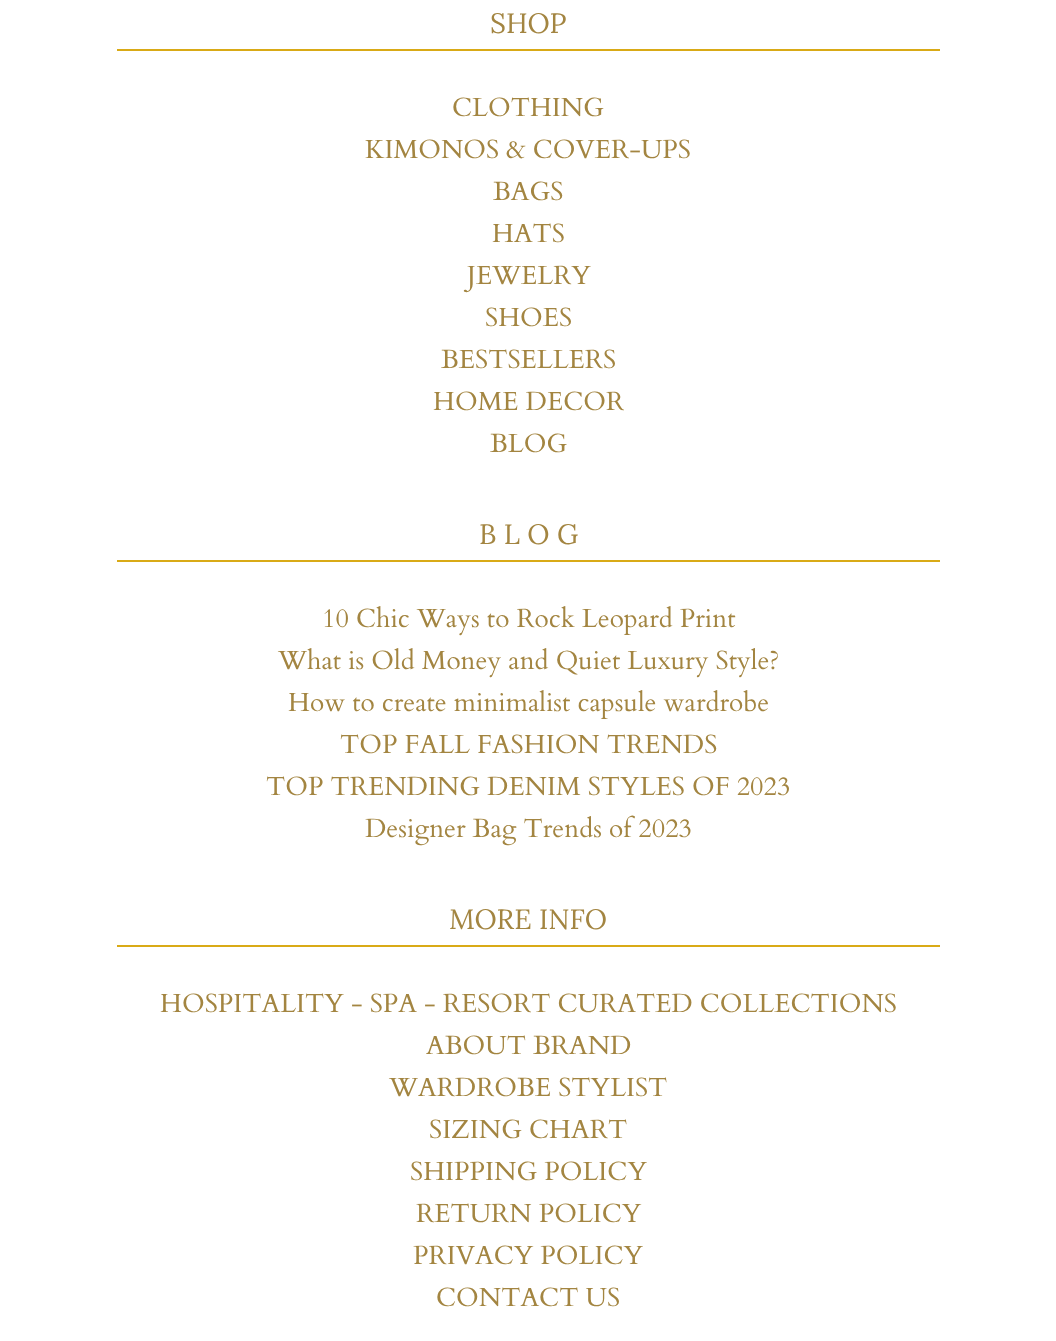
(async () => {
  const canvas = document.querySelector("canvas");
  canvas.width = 1056;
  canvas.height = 1341;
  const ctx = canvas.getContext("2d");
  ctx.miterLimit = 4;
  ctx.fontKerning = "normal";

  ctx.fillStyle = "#ffffff";
  ctx.fillRect(0, 0, 1056, 1341);
  for (const [x, y, w, h, color] of [
    [117, 49, 823, 2, "#d9aa16"],
    [117, 560, 823, 2, "#d9aa16"],
    [117, 945, 823, 2, "#d9aa16"],
  ]) {
    ctx.fillStyle = color;
    ctx.fillRect(x, y, w, h);
  }
  ctx.font = "28px Lora";
  ctx.fillStyle = "#a38541";
  ctx.fillText("SHOP", 490, 33);
  ctx.font = "26.25px Cardo";
  for (const [text, x, y] of [
    ["CLOTHING", 452, 116],
    ["KIMONOS & COVER-UPS", 365, 158],
    ["BAGS", 493, 200],
    ["HATS", 492, 242],
    ["JEWELRY", 467, 284],
    ["SHOES", 485, 326],
    ["BESTSELLERS", 441, 368],
    ["HOME DECOR", 433, 410],
    ["BLOG", 490, 452],
  ]) {
    ctx.fillText(text, x, y);
  }
  ctx.font = "28px Lora";
  ctx.fillText("B L O G", 479, 544);
  ctx.font = "26.25px Cardo";
  for (const [text, x, y] of [
    ["10 Chic Ways to Rock Leopard Print", 322, 627],
    ["What is Old Money and Quiet Luxury Style?", 278, 669],
    ["How to create minimalist capsule wardrobe", 288, 711],
    ["TOP FALL FASHION TRENDS", 340, 753],
    ["TOP TRENDING DENIM STYLES OF 2023", 266, 795],
    ["Designer Bag Trends of 2023", 365, 837],
  ]) {
    ctx.fillText(text, x, y);
  }
  ctx.font = "28px Lora";
  ctx.fillText("MORE INFO", 449, 929);
  ctx.font = "26.25px Cardo";
  for (const [text, x, y] of [
    ["HOSPITALITY - SPA - RESORT CURATED COLLECTIONS", 160, 1012],
    ["ABOUT BRAND", 426, 1054],
    ["WARDROBE STYLIST", 389, 1096],
    ["SIZING CHART", 429, 1138],
    ["SHIPPING POLICY", 410, 1180],
    ["RETURN POLICY", 416, 1222],
    ["PRIVACY POLICY", 413, 1264],
    ["CONTACT US", 436, 1306],
  ]) {
    ctx.fillText(text, x, y);
  }
})();
